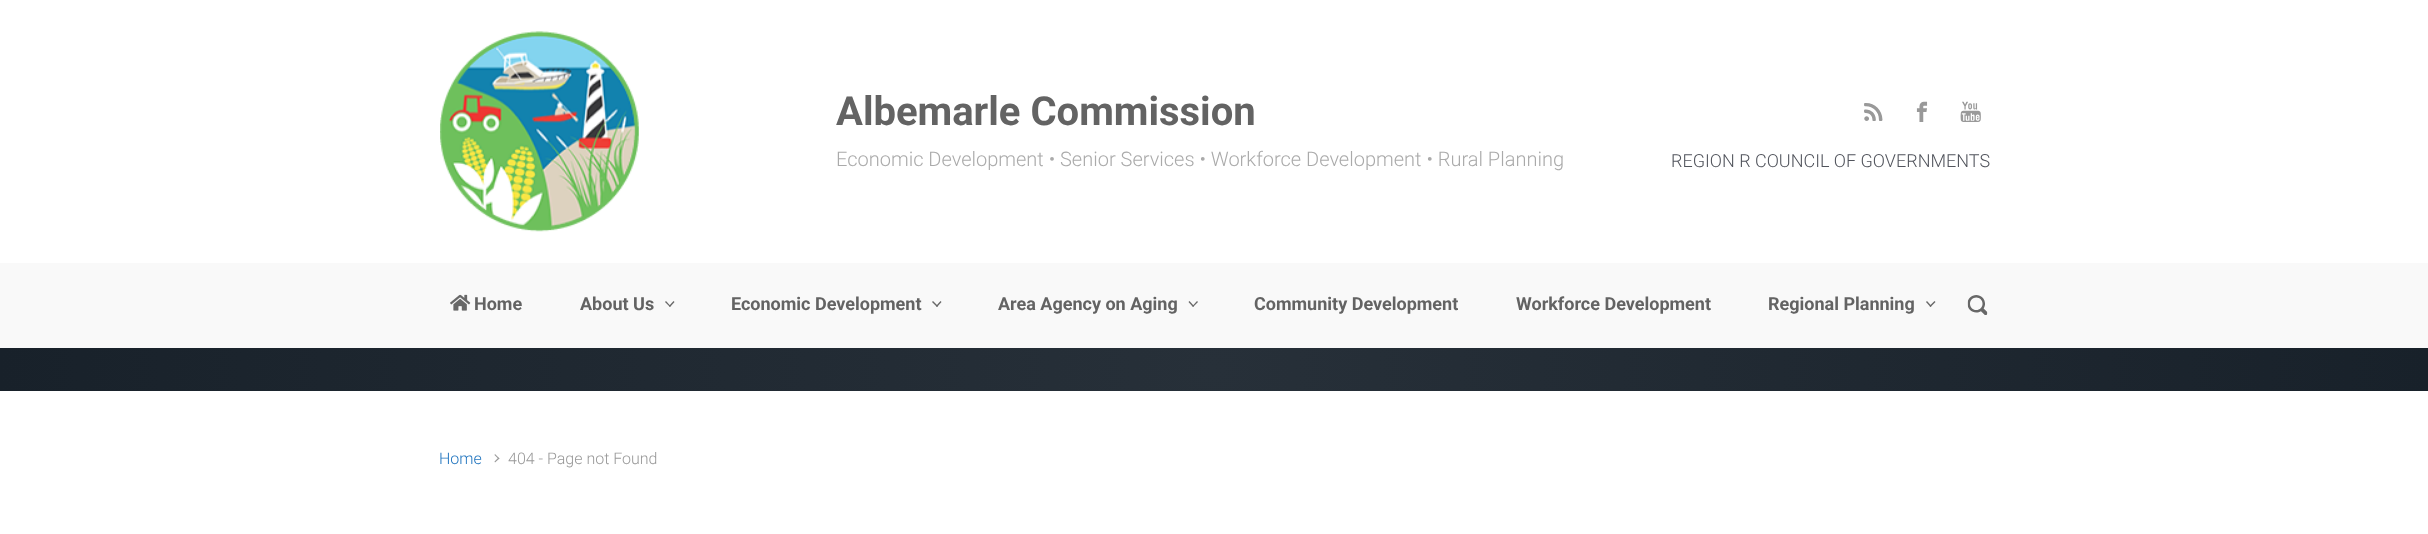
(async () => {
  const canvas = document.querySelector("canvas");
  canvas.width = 2428;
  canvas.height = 534;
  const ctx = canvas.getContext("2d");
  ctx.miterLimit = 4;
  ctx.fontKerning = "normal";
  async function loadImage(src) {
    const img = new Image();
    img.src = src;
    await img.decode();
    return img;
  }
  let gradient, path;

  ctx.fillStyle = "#f9f9f9";
  ctx.fillRect(0, 0, 2428, 534);
  ctx.fillStyle = "#ffffff";
  ctx.fillRect(0, 0, 2428, 263);
  ctx.drawImage(await loadImage("img/1.png"), 440, 31, 199, 201);
  ctx.drawImage(await loadImage("img/2.png"), 1864, 103, 19, 18);
  ctx.drawImage(await loadImage("img/3.png"), 1916, 101, 12, 21);
  ctx.drawImage(await loadImage("img/4.png"), 1960, 101, 21, 21);
  ctx.drawImage(await loadImage("img/5.png"), 450, 294, 21, 17);
  ctx.fillStyle = "#686868";
  path = new Path2D("M673.5 301L674.5 302L670 307L669 306Z");
  ctx.fill(path);
  path = new Path2D("M666 301L670.5 306L670 307L665 302Z");
  ctx.fill(path);
  path = new Path2D("M940.5 301L941.5 302L937 307L936 306Z");
  ctx.fill(path);
  path = new Path2D("M933 301L938 306L937 307L932 302Z");
  ctx.fill(path);
  path = new Path2D("M1197 301L1198 302L1193 307L1192.5 306Z");
  ctx.fill(path);
  path = new Path2D("M1189.5 301L1194 306L1193 307L1188.5 302Z");
  ctx.fill(path);
  path = new Path2D("M1934.5 301L1935.5 302L1930.5 307L1929.5 306Z");
  ctx.fill(path);
  path = new Path2D("M1927 301L1931.5 306L1930.5 307L1926 302Z");
  ctx.fill(path);
  ctx.drawImage(await loadImage("img/6.png"), 1967, 295, 21, 20);
  gradient = ctx.createRadialGradient(1214, 369, 0, 1214, 369, 1215);
  gradient.addColorStop(0, "#273039");
  gradient.addColorStop(1, "#18212a");
  ctx.fillStyle = gradient;
  ctx.fillRect(0, 348, 2428, 43);
  ctx.fillStyle = "#ffffff";
  ctx.fillRect(0, 391, 2428, 143);
  ctx.fillStyle = "#999999";
  path = new Path2D("M494.5 455L495 454L499.5 458.5L498.5 459Z");
  ctx.fill(path);
  path = new Path2D("M494.5 461.5L498.5 457.5L499.5 458.5L495 462.5Z");
  ctx.fill(path);
  ctx.font = "bold 40px Roboto";
  ctx.fillStyle = "#636363";
  ctx.fillText("Albemarle Commission", 836, 125);
  ctx.font = "300 20px Roboto";
  ctx.fillStyle = "#aaaaaa";
  ctx.fillText("Economic Development • Senior Services • Workforce Development • Rural Planning", 836, 166);
  ctx.font = "300 18px Roboto";
  ctx.fillStyle = "#51545c";
  ctx.fillText("REGION R COUNCIL OF GOVERNMENTS", 1671, 167);
  ctx.font = "bold 18px Roboto";
  ctx.fillStyle = "#636363";
  for (const [text, x, y] of [
    ["Home", 474, 310],
    ["About Us", 580, 310],
    ["Economic Development", 731, 310],
    ["Area Agency on Aging", 998, 310],
    ["Community Development", 1254, 310],
    ["Workforce Development", 1516, 310],
    ["Regional Planning", 1768, 310],
  ]) {
    ctx.fillText(text, x, y);
  }
  ctx.font = "300 16px Roboto";
  ctx.fillStyle = "#1e73be";
  ctx.fillText("Home", 439, 464);
  ctx.fillStyle = "#999999";
  ctx.fillText("404 - Page not Found", 508, 464);
})();
